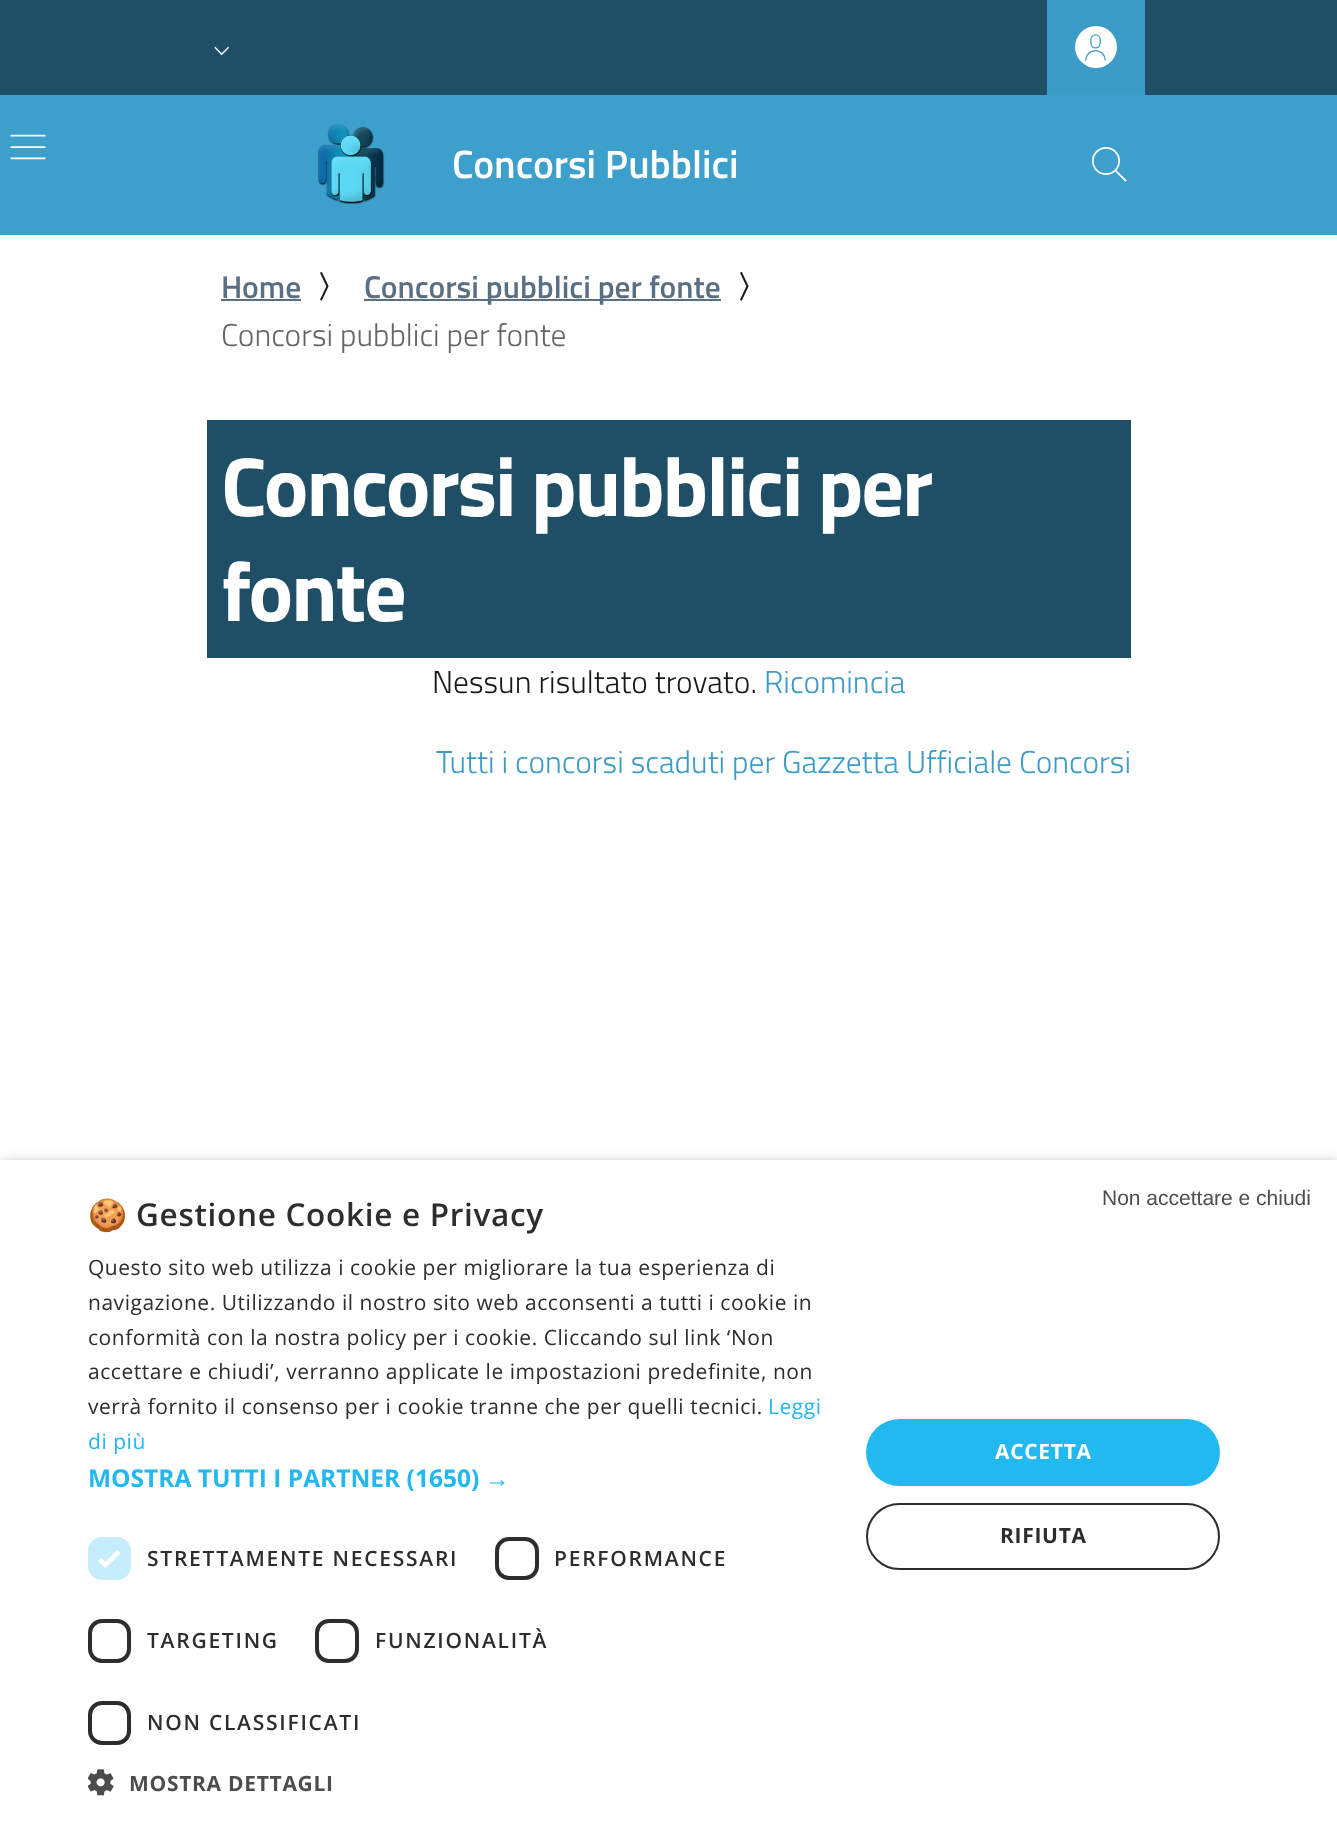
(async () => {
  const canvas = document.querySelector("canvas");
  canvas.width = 1337;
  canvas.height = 1827;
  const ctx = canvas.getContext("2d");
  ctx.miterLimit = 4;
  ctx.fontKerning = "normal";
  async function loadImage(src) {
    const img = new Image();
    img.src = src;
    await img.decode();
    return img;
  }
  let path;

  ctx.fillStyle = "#ffffff";
  ctx.fillRect(0, 0, 1337, 1827);
  ctx.fillStyle = "#1f4f66";
  ctx.fillRect(0, 0, 1337, 95);
  ctx.drawImage(await loadImage("img/1.png"), 214, 46, 15, 10);
  ctx.fillStyle = "#3c9bc7";
  ctx.fillRect(1047, 0, 98, 95);
  ctx.fillStyle = "#ffffff";
  ctx.beginPath();
  ctx.arc(1096, 47, 21, 0, Math.PI * 2);
  ctx.fill();
  ctx.drawImage(await loadImage("img/2.png"), 1085, 34, 21, 27);
  ctx.fillStyle = "#3d9fcc";
  ctx.fillRect(0, 95, 1337, 140);
  ctx.drawImage(await loadImage("img/3.png"), 10, 134, 36, 26);
  ctx.drawImage(await loadImage("img/4.png"), 318, 123, 67, 81);
  ctx.drawImage(await loadImage("img/5.png"), 1092, 147, 35, 35);
  for (const [x, y, w, h, color] of [
    [221, 299, 80, 2, "#5b6f82"],
    [364, 299, 357, 2, "#5b6f82"],
    [207, 420, 924, 238, "#1f4f66"],
  ]) {
    ctx.fillStyle = color;
    ctx.fillRect(x, y, w, h);
  }
  ctx.fillStyle = "rgba(0, 0, 0, 0.35)";
  ctx.filter = "blur(7px)";
  ctx.beginPath();
  ctx.rect(2, 1164, 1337, 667);
  ctx.fill();
  ctx.filter = "none";
  ctx.fillStyle = "#ffffff";
  ctx.fillRect(0, 1160, 1337, 667);
  ctx.fillStyle = "#c6edfb";
  ctx.beginPath();
  ctx.roundRect(88, 1537, 43, 43, 14);
  ctx.fill();
  path = new Path2D("M99.5 1559.5L105.5 1565L119 1551.5");
  ctx.strokeStyle = "#ffffff";
  ctx.lineWidth = 4.6;
  ctx.stroke(path);
  ctx.beginPath();
  ctx.roundRect(497, 1539, 40, 39, 12);
  ctx.strokeStyle = "#2d2d2d";
  ctx.lineWidth = 4;
  ctx.stroke();
  ctx.beginPath();
  ctx.roundRect(90, 1621, 39, 40, 12);
  ctx.stroke();
  ctx.beginPath();
  ctx.roundRect(317, 1621, 40, 40, 12);
  ctx.stroke();
  ctx.beginPath();
  ctx.roundRect(90, 1703, 39, 40, 12);
  ctx.stroke();
  ctx.drawImage(await loadImage("img/6.png"), 88, 1769, 26, 27);
  ctx.fillStyle = "#22b8f0";
  ctx.beginPath();
  ctx.roundRect(866, 1419, 354, 67, 33.5);
  ctx.fill();
  ctx.beginPath();
  ctx.roundRect(867, 1504, 352, 65, 32.5);
  ctx.lineWidth = 2;
  ctx.stroke();
  ctx.font = "600 39.5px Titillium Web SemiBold";
  ctx.fillStyle = "#ffffff";
  ctx.fillText("Concorsi Pubblici", 452, 178);
  ctx.font = "600 31.5px Titillium Web SemiBold";
  ctx.fillStyle = "#5b6f82";
  ctx.fillText("Home", 221, 298);
  ctx.font = "bold 31.5px WenQuanYi Zen Hei";
  ctx.fillStyle = "#19191a";
  ctx.fillText("〉", 316, 298);
  ctx.font = "600 31.5px Titillium Web SemiBold";
  ctx.fillStyle = "#5b6f82";
  ctx.fillText("Concorsi pubblici per fonte", 364, 298);
  ctx.font = "bold 31.5px WenQuanYi Zen Hei";
  ctx.fillStyle = "#19191a";
  ctx.fillText("〉", 736, 298);
  ctx.font = "300 31.5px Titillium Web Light";
  ctx.fillStyle = "#656566";
  ctx.fillText("Concorsi pubblici per fonte", 221, 346);
  ctx.letterSpacing = "-2.1px";
  ctx.font = "bold 84px Titillium Web";
  ctx.fillStyle = "#ffffff";
  ctx.fillText("Concorsi pubblici per", 221, 516);
  ctx.fillText("fonte", 221, 621);
  ctx.letterSpacing = "0px";
  ctx.font = "300 31.5px Titillium Web Light";
  ctx.fillStyle = "#19191a";
  ctx.fillText("Nessun risultato trovato.", 432, 693);
  ctx.fillStyle = "#3c9bc7";
  ctx.fillText("Ricomincia", 764, 693);
  ctx.fillText("Tutti i concorsi scaduti per Gazzetta Ufficiale Concorsi", 436, 773);
  ctx.letterSpacing = "0.7px";
  ctx.font = "bold 31.5px Noto Color Emoji";
  ctx.fillStyle = "#2d2d2d";
  ctx.fillText("🍪", 88, 1226);
  ctx.font = "600 31.5px Open Sans";
  ctx.fillText("Gestione Cookie e Privacy", 136, 1226);
  ctx.letterSpacing = "0.53px";
  ctx.font = "21px Open Sans";
  for (const [text, x, y] of [
    ["Questo sito web utilizza i cookie per migliorare la tua esperienza di", 88, 1275],
    ["navigazione. Utilizzando il nostro sito web acconsenti a tutti i cookie in", 88, 1310],
    ["conformità con la nostra policy per i cookie. Cliccando sul link ‘Non", 88, 1345],
    ["accettare e chiudi’, verranno applicate le impostazioni predefinite, non", 88, 1379],
    ["verrà fornito il consenso per i cookie tranne che per quelli tecnici.", 88, 1414],
  ]) {
    ctx.fillText(text, x, y);
  }
  ctx.fillStyle = "#22b8f0";
  ctx.fillText("Leggi", 768, 1414);
  ctx.fillText("di più", 88, 1449);
  ctx.letterSpacing = "0px";
  ctx.font = "bold 24.5px Open Sans";
  ctx.fillText("MOSTRA TUTTI I PARTNER (1650)", 88, 1487);
  ctx.font = "bold 24.5px Liberation Sans";
  ctx.fillText("→", 485, 1487);
  ctx.letterSpacing = "1.75px";
  ctx.font = "600 21px Open Sans";
  ctx.fillStyle = "#2d2d2d";
  for (const [text, x, y] of [
    ["STRETTAMENTE NECESSARI", 147, 1566],
    ["PERFORMANCE", 554, 1566],
    ["TARGETING", 147, 1648],
    ["FUNZIONALITÀ", 375, 1648],
    ["NON CLASSIFICATI", 147, 1730],
  ]) {
    ctx.fillText(text, x, y);
  }
  ctx.letterSpacing = "0.7px";
  ctx.font = "bold 21px Open Sans";
  ctx.fillStyle = "#4d4d4d";
  ctx.fillText("MOSTRA DETTAGLI", 129, 1791);
  ctx.fillStyle = "#ffffff";
  ctx.fillText("ACCETTA", 995, 1459);
  ctx.fillStyle = "#2d2d2d";
  ctx.fillText("RIFIUTA", 1000, 1543);
  ctx.letterSpacing = "0px";
  ctx.font = "21px Liberation Sans";
  ctx.fillStyle = "#4d4d4d";
  ctx.fillText("Non accettare e chiudi", 1102, 1205);
})();
